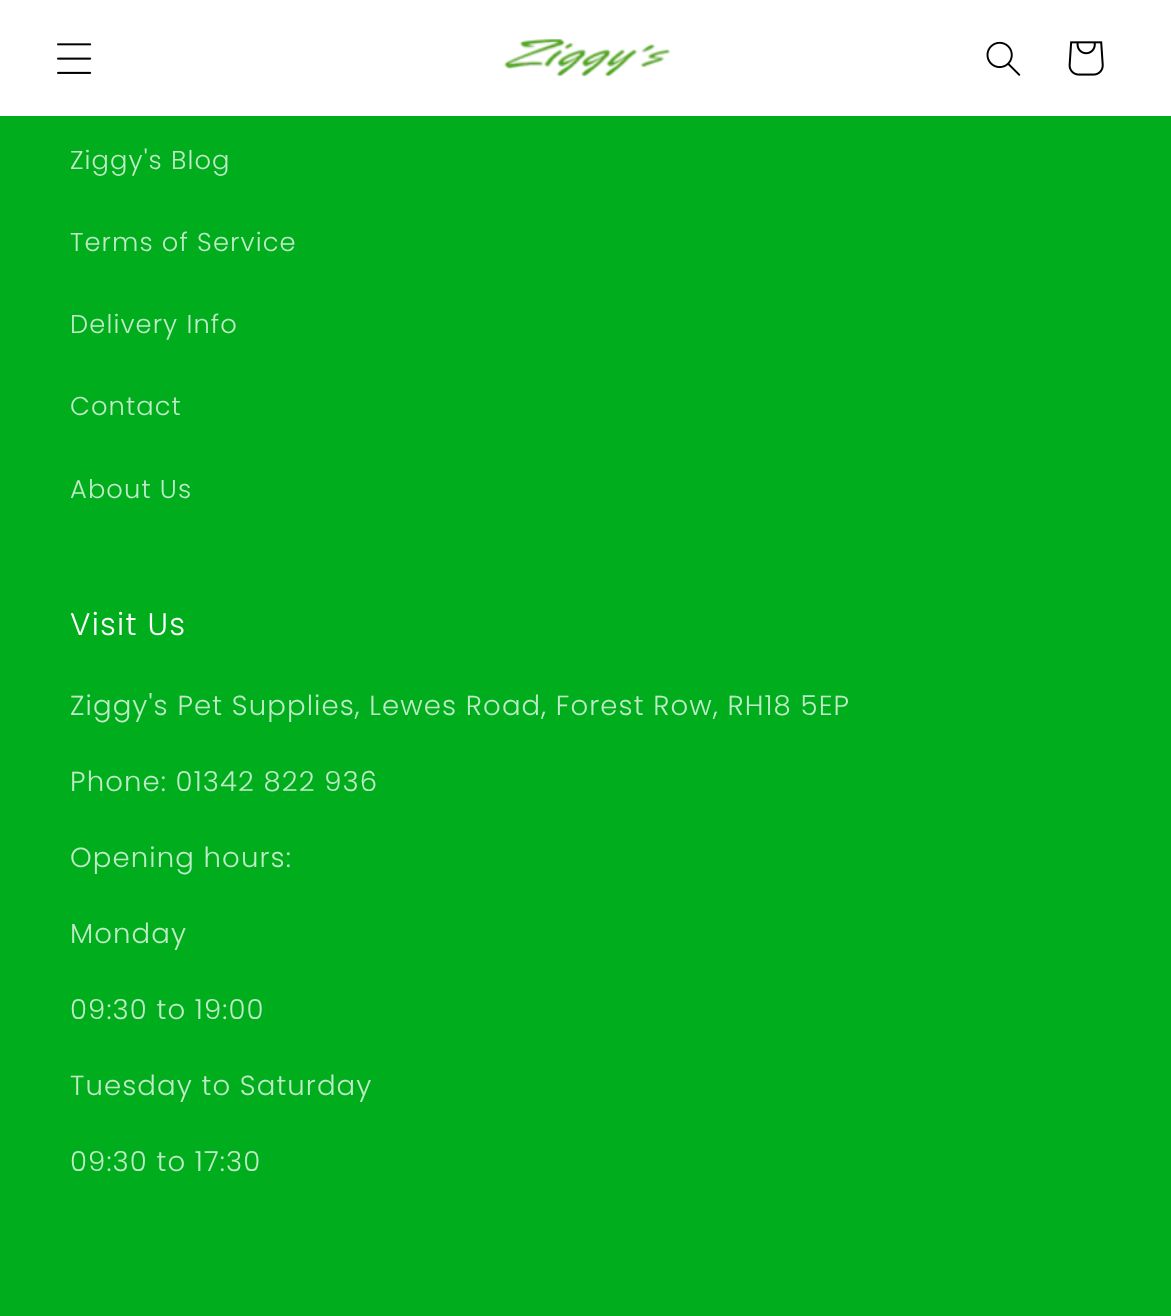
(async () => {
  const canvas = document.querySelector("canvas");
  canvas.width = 1171;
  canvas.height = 1316;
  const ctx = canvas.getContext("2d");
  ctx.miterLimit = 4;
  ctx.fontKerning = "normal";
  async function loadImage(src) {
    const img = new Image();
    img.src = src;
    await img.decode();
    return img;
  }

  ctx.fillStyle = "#00ae1d";
  ctx.fillRect(0, 0, 1171, 1316);
  ctx.fillStyle = "#ffffff";
  ctx.fillRect(0, 0, 1171, 116);
  ctx.drawImage(await loadImage("img/1.png"), 57, 43, 35, 31);
  ctx.drawImage(await loadImage("img/2.png"), 504, 39, 167, 38);
  ctx.drawImage(await loadImage("img/3.png"), 986, 41, 35, 35);
  ctx.drawImage(await loadImage("img/4.png"), 1068, 41, 36, 35);
  ctx.letterSpacing = "1.1px";
  ctx.font = "300 25.75px Poppins";
  ctx.fillStyle = "#bfebc7";
  for (const [text, x, y] of [
    ["Ziggy's Blog", 70, 169],
    ["Terms of Service", 70, 251],
    ["Delivery Info", 70, 333],
    ["Contact", 70, 415],
    ["About Us", 70, 498],
  ]) {
    ctx.fillText(text, x, y);
  }
  ctx.letterSpacing = "1.25px";
  ctx.font = "300 31px Poppins";
  ctx.fillStyle = "#ffffff";
  ctx.fillText("Visit Us", 70, 635);
  ctx.letterSpacing = "1.1px";
  ctx.font = "300 27.55px Poppins";
  ctx.fillStyle = "#bfebc7";
  for (const [text, x, y] of [
    ["Ziggy's Pet Supplies, Lewes Road, Forest Row, RH18 5EP", 70, 715],
    ["Phone: 01342 822 936", 70, 791],
    ["Opening hours:", 70, 867],
    ["Monday", 70, 943],
    ["09:30 to 19:00", 70, 1019],
    ["Tuesday to Saturday", 70, 1095],
    ["09:30 to 17:30", 70, 1171],
  ]) {
    ctx.fillText(text, x, y);
  }
})();
